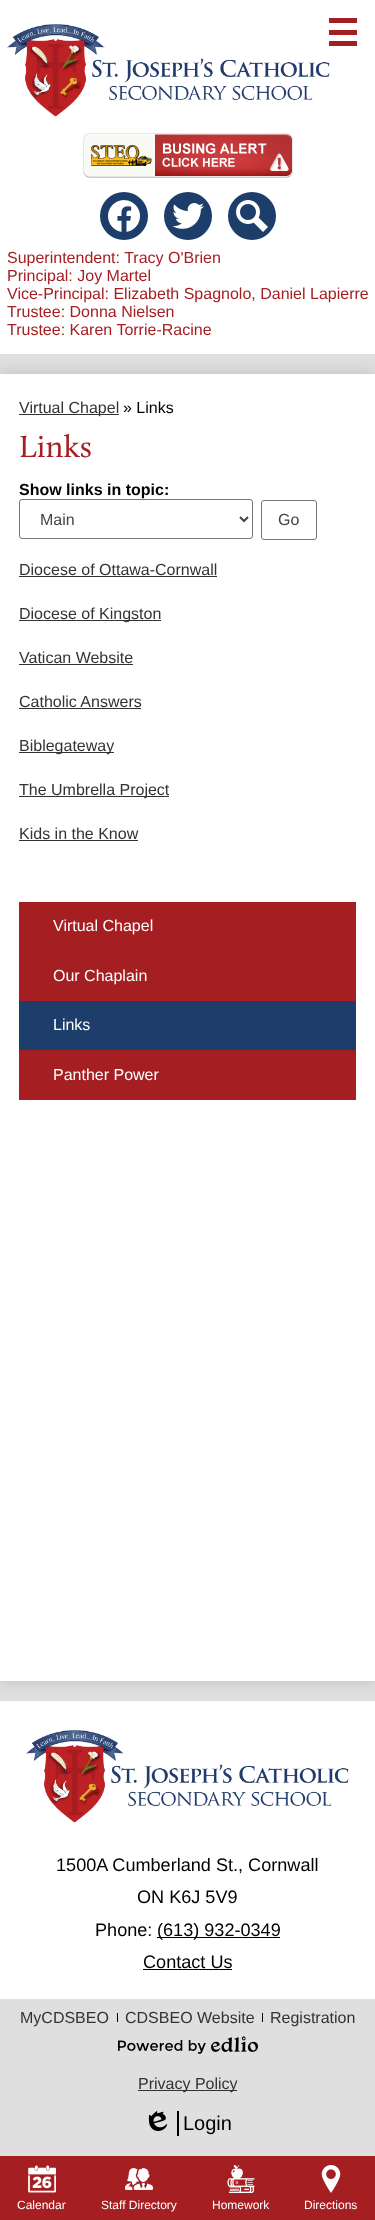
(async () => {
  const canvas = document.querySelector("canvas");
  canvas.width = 375;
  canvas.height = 2220;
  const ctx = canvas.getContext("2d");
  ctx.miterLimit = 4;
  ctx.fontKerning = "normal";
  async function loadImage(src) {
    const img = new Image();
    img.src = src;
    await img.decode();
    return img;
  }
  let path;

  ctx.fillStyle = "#dfdfdf";
  ctx.fillRect(0, 0, 375, 2220);
  ctx.fillStyle = "rgba(0, 0, 0, 0.15)";
  ctx.filter = "blur(7.5px)";
  ctx.beginPath();
  ctx.rect(0, 374, 375, 1307);
  ctx.fill();
  ctx.filter = "none";
  ctx.fillStyle = "#ffffff";
  ctx.fillRect(0, 0, 375, 354);
  ctx.drawImage(await loadImage("img/1.png"), 7, 24, 323, 93);
  for (const [x, y, w, h, color] of [
    [329, 18, 28, 5, "#a51e22"],
    [329, 30, 28, 5, "#a51e22"],
    [329, 41, 28, 5, "#a51e22"],
  ]) {
    ctx.fillStyle = color;
    ctx.fillRect(x, y, w, h);
  }
  ctx.drawImage(await loadImage("img/2.png"), 83, 133, 210, 45);
  ctx.fillStyle = "#1d3d6b";
  ctx.beginPath();
  ctx.arc(124, 216, 24, 0, Math.PI * 2);
  ctx.fill();
  ctx.drawImage(await loadImage("img/3.png"), 108, 200, 32, 32);
  ctx.beginPath();
  ctx.arc(188, 216, 24, 0, Math.PI * 2);
  ctx.fill();
  ctx.drawImage(await loadImage("img/4.png"), 172, 203, 32, 26);
  ctx.beginPath();
  ctx.arc(252, 216, 24, 0, Math.PI * 2);
  ctx.fill();
  ctx.drawImage(await loadImage("img/5.png"), 236, 200, 32, 32);
  ctx.fillStyle = "#ffffff";
  ctx.fillRect(0, 374, 375, 1307);
  ctx.fillStyle = "#333333";
  ctx.fillRect(19, 414, 100, 1);
  ctx.beginPath();
  ctx.roundRect(19.5, 499.5, 233, 39, 2.5);
  ctx.strokeStyle = "#767676";
  ctx.stroke();
  path = new Path2D("M240 517L244 521L248 517");
  ctx.strokeStyle = "#444444";
  ctx.lineWidth = 2;
  ctx.stroke(path);
  ctx.beginPath();
  ctx.roundRect(261.5, 500.5, 55, 39, 2.5);
  ctx.strokeStyle = "#767676";
  ctx.lineWidth = 1;
  ctx.stroke();
  for (const [x, y, w, h, color] of [
    [19, 576, 198, 1, "#333333"],
    [19, 620, 142, 1, "#333333"],
    [19, 664, 114, 1, "#333333"],
    [19, 708, 122, 1, "#333333"],
    [19, 752, 95, 1, "#333333"],
    [19, 796, 150, 1, "#333333"],
    [19, 840, 119, 1, "#333333"],
    [19, 902, 337, 198, "#a51e22"],
    [19, 1001, 337, 49, "#1d3d6b"],
    [0, 1701, 375, 298, "#ffffff"],
  ]) {
    ctx.fillStyle = color;
    ctx.fillRect(x, y, w, h);
  }
  ctx.drawImage(await loadImage("img/1.png"), 26, 1730, 323, 93);
  for (const [x, y, w, h, color] of [
    [157, 1937, 123, 1, "#000000"],
    [143, 1969, 89, 1, "#000000"],
    [117, 2013, 1, 9, "#000000"],
    [262, 2013, 1, 9, "#000000"],
  ]) {
    ctx.fillStyle = color;
    ctx.fillRect(x, y, w, h);
  }
  ctx.drawImage(await loadImage("img/6.png"), 118, 2036, 140, 18);
  ctx.fillStyle = "#333333";
  ctx.fillRect(138, 2090, 99, 1);
  ctx.fillStyle = "#000000";
  ctx.fillRect(177, 2111, 2, 25);
  ctx.drawImage(await loadImage("img/7.png"), 148, 2111, 20, 20);
  ctx.fillStyle = "#a51e22";
  ctx.fillRect(0, 2156, 375, 64);
  ctx.drawImage(await loadImage("img/8.png"), 28, 2165, 28, 28);
  ctx.drawImage(await loadImage("img/9.png"), 125, 2168, 28, 22);
  ctx.drawImage(await loadImage("img/10.png"), 227, 2165, 28, 28);
  ctx.drawImage(await loadImage("img/11.png"), 321, 2165, 20, 28);
  ctx.font = "16px Liberation Sans";
  for (const [text, x, y] of [
    ["Superintendent: Tracy O'Brien", 7, 263],
    ["Principal: Joy Martel", 7, 281],
    ["Vice-Principal: Elizabeth Spagnolo, Daniel Lapierre", 7, 299],
    ["Trustee: Donna Nielsen", 7, 317],
    ["Trustee: Karen Torrie-Racine", 7, 335],
  ]) {
    ctx.fillText(text, x, y);
  }
  ctx.fillStyle = "#333333";
  ctx.fillText("Virtual Chapel", 19, 413);
  ctx.fillStyle = "#000000";
  ctx.fillText("» Links", 123, 413);
  ctx.font = "31.5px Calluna";
  ctx.fillStyle = "#a51e22";
  ctx.fillText("Links", 19, 457);
  ctx.font = "bold 16px Liberation Sans";
  ctx.fillStyle = "#000000";
  ctx.fillText("Show links in topic:", 19, 495);
  ctx.font = "16px Liberation Sans";
  ctx.fillStyle = "#444444";
  ctx.fillText("Main", 40, 525);
  ctx.fillText("Go", 278, 525);
  ctx.fillStyle = "#333333";
  for (const [text, x, y] of [
    ["Diocese of Ottawa-Cornwall", 19, 575],
    ["Diocese of Kingston", 19, 619],
    ["Vatican Website", 19, 663],
    ["Catholic Answers", 19, 707],
    ["Biblegateway", 19, 751],
    ["The Umbrella Project", 19, 795],
    ["Kids in the Know", 19, 839],
  ]) {
    ctx.fillText(text, x, y);
  }
  ctx.fillStyle = "#ffffff";
  for (const [text, x, y] of [
    ["Virtual Chapel", 53, 931],
    ["Our Chaplain", 53, 981],
    ["Links", 53, 1030],
    ["Panther Power", 53, 1080],
  ]) {
    ctx.fillText(text, x, y);
  }
  ctx.font = "18.1px Liberation Sans";
  ctx.fillStyle = "#000000";
  for (const [text, x, y] of [
    ["1500A Cumberland St., Cornwall", 56, 1871],
    ["ON K6J 5V9", 137, 1903],
    ["Phone:", 95, 1936],
    ["(613) 932-0349", 157, 1936],
    ["Contact Us", 143, 1968],
  ]) {
    ctx.fillText(text, x, y);
  }
  ctx.font = "16px Liberation Sans";
  ctx.fillStyle = "#333333";
  for (const [text, x, y] of [
    ["MyCDSBEO", 20, 2023],
    ["CDSBEO Website", 125, 2023],
    ["Registration", 270, 2023],
    ["Privacy Policy", 138, 2089],
  ]) {
    ctx.fillText(text, x, y);
  }
  ctx.font = "20px Liberation Sans";
  ctx.fillStyle = "#000000";
  ctx.fillText("Login", 183, 2130);
  ctx.font = "12px Liberation Sans";
  ctx.fillStyle = "#ffffff";
  for (const [text, x, y] of [
    ["Calendar", 17, 2209],
    ["Staff Directory", 101, 2209],
    ["Homework", 212, 2209],
    ["Directions", 304, 2209],
  ]) {
    ctx.fillText(text, x, y);
  }
})();
